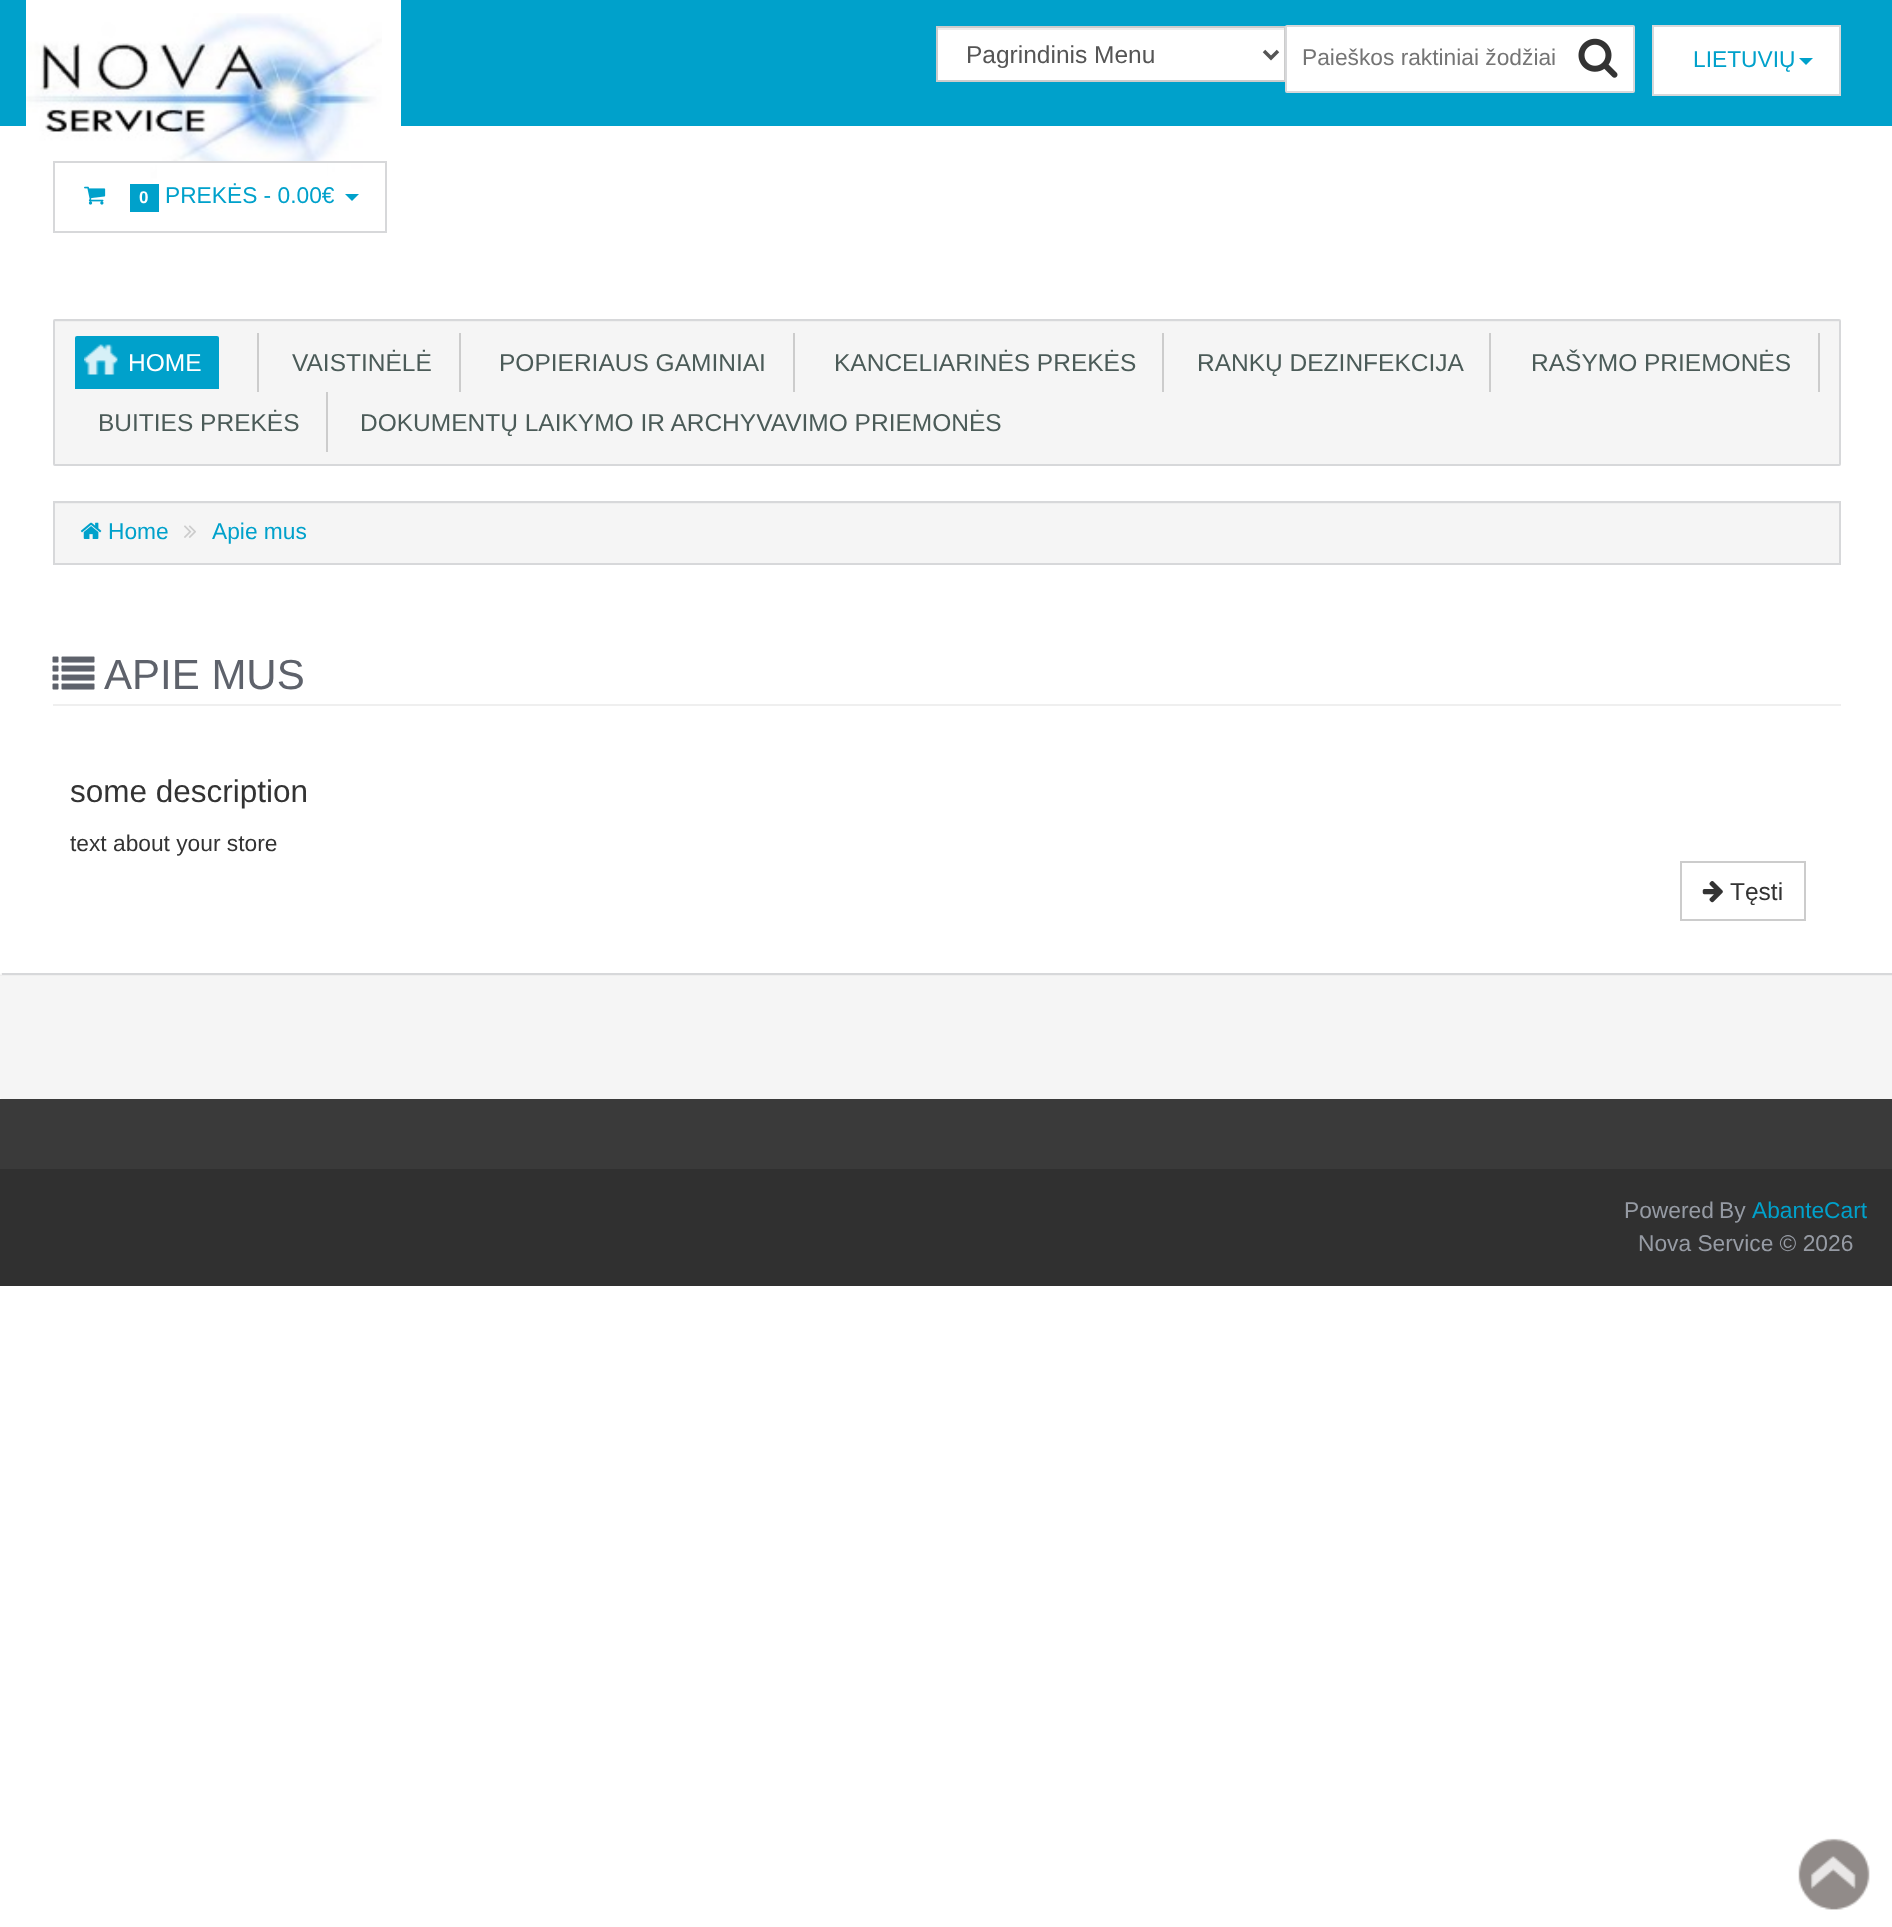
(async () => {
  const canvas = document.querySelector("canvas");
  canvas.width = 1892;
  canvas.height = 1927;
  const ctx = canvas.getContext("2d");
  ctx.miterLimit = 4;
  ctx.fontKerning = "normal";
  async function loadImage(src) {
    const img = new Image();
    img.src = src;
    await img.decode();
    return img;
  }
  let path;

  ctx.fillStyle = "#ffffff";
  ctx.fillRect(0, 0, 1892, 1927);
  ctx.fillStyle = "#00a1cb";
  ctx.fillRect(0, 0, 1892, 126);
  ctx.fillStyle = "#ffffff";
  ctx.fillRect(26, 0, 375, 126);
  ctx.drawImage(await loadImage("img/1.png"), 26, 13, 356, 176);
  ctx.fillRect(938, 30, 346, 50);
  ctx.fillStyle = "#ececec";
  ctx.fillRect(938, 28, 347, 2);
  ctx.strokeStyle = "#cccccc";
  ctx.lineWidth = 2;
  ctx.strokeRect(937, 27, 348, 54);
  path = new Path2D("M1264 51L1271 58L1278 51");
  ctx.strokeStyle = "#555555";
  ctx.lineWidth = 3.5;
  ctx.stroke(path);
  ctx.fillStyle = "#ffffff";
  ctx.beginPath();
  ctx.roundRect(1286, 26, 348, 66, 1);
  ctx.fill();
  ctx.strokeStyle = "#d7d8da";
  ctx.lineWidth = 2;
  ctx.stroke();
  ctx.drawImage(await loadImage("img/2.png"), 1578, 38, 40, 40);
  ctx.beginPath();
  ctx.rect(1653, 26, 187, 69);
  ctx.fill();
  ctx.stroke();
  ctx.fillStyle = "#00a1cb";
  path = new Path2D("M1799 58H1813L1806 65Z");
  ctx.fill(path);
  ctx.fillStyle = "#ffffff";
  ctx.fillRect(157, 163, 170, 26);
  ctx.strokeRect(54, 162, 332, 70);
  ctx.drawImage(await loadImage("img/3.png"), 84, 186, 22, 19);
  ctx.fillStyle = "#00a1cb";
  ctx.fillRect(130, 184, 29, 28);
  path = new Path2D("M345 194H359L352 201Z");
  ctx.fill(path);
  ctx.fillStyle = "#f5f5f5";
  ctx.beginPath();
  ctx.roundRect(53, 319, 1788, 147, 2);
  ctx.fill();
  ctx.fillStyle = "#efefef";
  ctx.fillRect(54, 321, 1785, 1);
  ctx.beginPath();
  ctx.roundRect(54, 320, 1786, 145, 1);
  ctx.stroke();
  ctx.fillStyle = "#cccccc";
  ctx.fillRect(257, 333, 2, 59);
  ctx.fillStyle = "#00a1cb";
  ctx.beginPath();
  ctx.roundRect(75, 336, 144, 53, [2, 2, 0, 0]);
  ctx.fill();
  ctx.drawImage(await loadImage("img/4.png"), 84, 344, 34, 31);
  for (const [x, y, w, h, color] of [
    [459, 333, 2, 59, "#cccccc"],
    [793, 333, 2, 59, "#cccccc"],
    [1162, 333, 2, 59, "#cccccc"],
    [1489, 333, 2, 59, "#cccccc"],
    [1818, 333, 2, 59, "#cccccc"],
    [326, 392, 2, 60, "#cccccc"],
    [55, 504, 1784, 59, "#f5f5f5"],
    [54, 503, 1785, 1, "#efefef"],
  ]) {
    ctx.fillStyle = color;
    ctx.fillRect(x, y, w, h);
  }
  ctx.strokeRect(54, 502, 1786, 62);
  ctx.drawImage(await loadImage("img/5.png"), 80, 522, 22, 17);
  ctx.drawImage(await loadImage("img/6.png"), 184, 525, 12, 13);
  ctx.fillRect(53, 704, 1788, 2);
  ctx.drawImage(await loadImage("img/7.png"), 52, 656, 43, 34);
  ctx.strokeStyle = "#cccccc";
  ctx.strokeRect(1681, 862, 124, 58);
  ctx.drawImage(await loadImage("img/8.png"), 1702, 881, 21, 22);
  ctx.fillStyle = "#f5f5f5";
  ctx.beginPath();
  ctx.roundRect(0, 973, 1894, 126, 2);
  ctx.fill();
  ctx.fillStyle = "#efefef";
  path = new Path2D("M1892 975H0V976H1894V975Z");
  ctx.fill(path);
  for (const [x, y, w, h, color] of [
    [2, 973, 1890, 2, "#d7d8da"],
    [0, 1099, 1892, 70, "#3a3a3a"],
    [0, 1169, 1892, 117, "#303030"],
  ]) {
    ctx.fillStyle = color;
    ctx.fillRect(x, y, w, h);
  }
  ctx.drawImage(await loadImage("img/9.png"), 1798, 1838, 72, 72);
  ctx.font = "24.5px Liberation Sans";
  ctx.fillStyle = "#555555";
  ctx.fillText("Pagrindinis Menu", 966, 63);
  ctx.font = "22.75px Liberation Sans";
  ctx.fillStyle = "#757575";
  ctx.fillText("Paieškos raktiniai žodžiai", 1302, 65);
  ctx.fillStyle = "#00a1cb";
  ctx.fillText("LIETUVIŲ", 1693, 67);
  ctx.font = "bold 17px Liberation Sans";
  ctx.fillStyle = "#ffffff";
  ctx.fillText("0", 139, 203);
  ctx.font = "22.75px Liberation Sans";
  ctx.fillStyle = "#00a1cb";
  ctx.fillText("PREKĖS - 0.00€", 165, 203);
  ctx.font = "24.5px Liberation Sans";
  ctx.fillStyle = "#ffffff";
  ctx.fillText("HOME", 128, 371);
  ctx.fillStyle = "#4b5b58";
  for (const [text, x, y] of [
    ["VAISTINĖLĖ", 292, 371],
    ["POPIERIAUS GAMINIAI", 499, 371],
    ["KANCELIARINĖS PREKĖS", 834, 371],
    ["RANKŲ DEZINFEKCIJA", 1197, 371],
    ["RAŠYMO PRIEMONĖS", 1531, 371],
    ["BUITIES PREKĖS", 98, 431],
    ["DOKUMENTŲ LAIKYMO IR ARCHYVAVIMO PRIEMONĖS", 360, 431],
  ]) {
    ctx.fillText(text, x, y);
  }
  ctx.font = "22.75px Liberation Sans";
  ctx.fillStyle = "#00a1cb";
  ctx.fillText("Home", 108, 539);
  ctx.fillText("Apie mus", 212, 539);
  ctx.font = "42px Liberation Sans";
  ctx.fillStyle = "#5e626b";
  ctx.fillText("APIE MUS", 104, 689);
  ctx.font = "31.5px Liberation Sans";
  ctx.fillStyle = "#333333";
  ctx.fillText("some description", 70, 802);
  ctx.font = "22.75px Liberation Sans";
  ctx.fillText("text about your store", 70, 851);
  ctx.font = "24.5px Liberation Sans";
  ctx.fillText("Tęsti", 1730, 900);
  ctx.wordSpacing = "-1px";
  ctx.font = "22.75px Liberation Sans";
  ctx.fillStyle = "#969ba4";
  ctx.fillText("Powered By", 1624, 1218);
  ctx.wordSpacing = "0px";
  ctx.fillStyle = "#00a1cb";
  ctx.fillText("AbanteCart", 1752, 1218);
  ctx.fillStyle = "#969ba4";
  ctx.fillText("Nova Service © 2026", 1638, 1251);
})();
